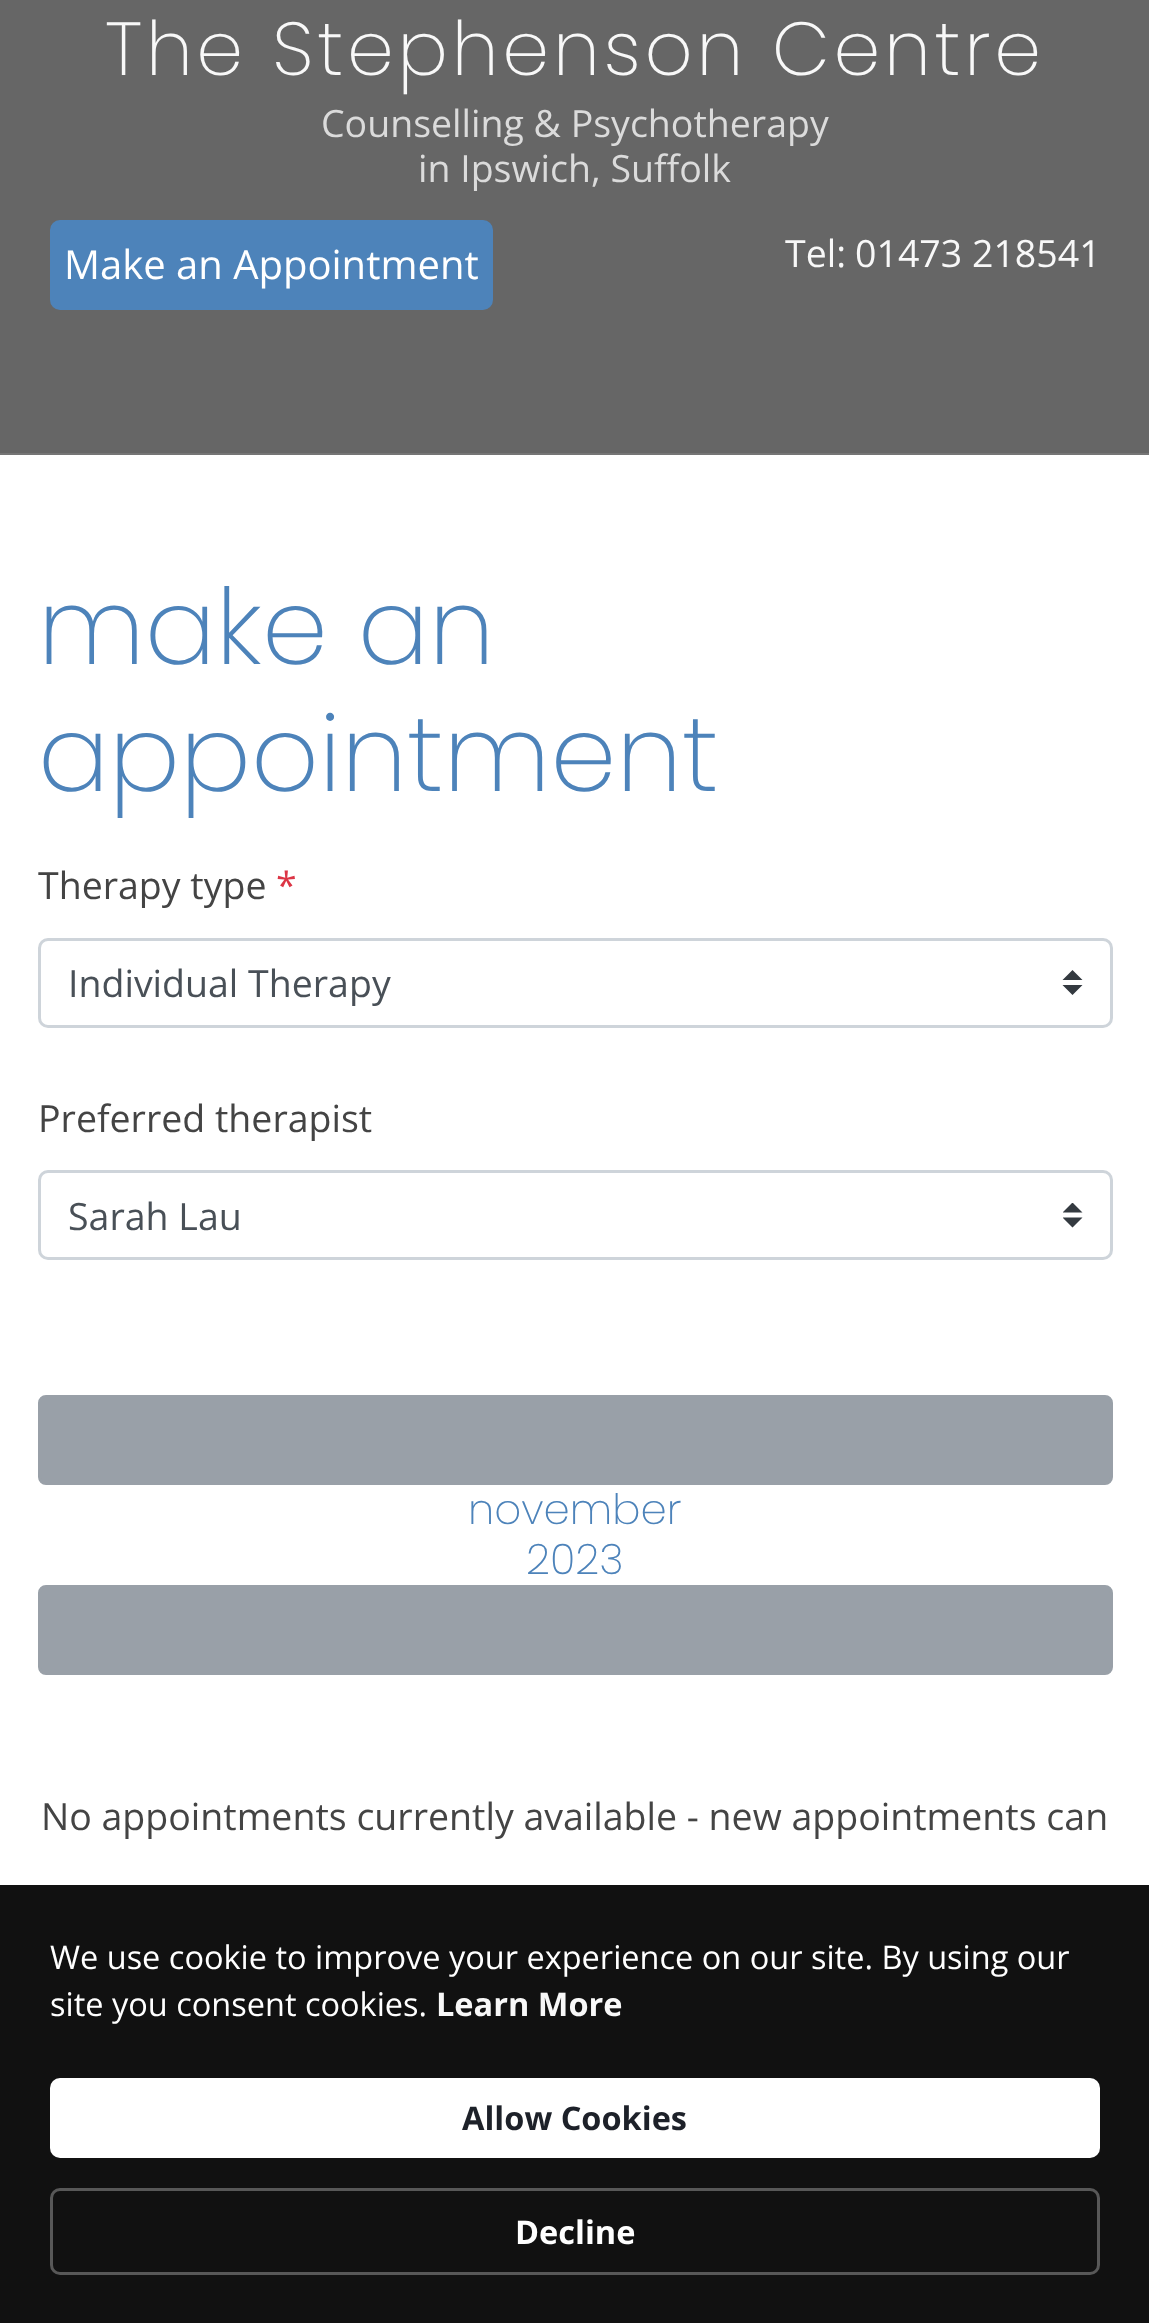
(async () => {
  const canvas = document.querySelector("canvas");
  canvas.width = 1149;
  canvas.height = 2323;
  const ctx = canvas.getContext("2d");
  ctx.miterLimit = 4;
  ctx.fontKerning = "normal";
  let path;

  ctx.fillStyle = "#ffffff";
  ctx.fillRect(0, 0, 1149, 2323);
  ctx.fillStyle = "#666666";
  ctx.fillRect(0, 0, 1149, 453);
  ctx.fillStyle = "#4d83ba";
  ctx.beginPath();
  ctx.roundRect(51.5, 221.5, 440, 87, 8.5);
  ctx.fill();
  ctx.strokeStyle = "#4d83ba";
  ctx.lineWidth = 3;
  ctx.stroke();
  ctx.fillStyle = "#757575";
  ctx.fillRect(0, 453, 1149, 2);
  ctx.fillStyle = "#343a40";
  path = new Path2D("M1072.5 970L1062.5 980H1082.5ZM1072.5 995L1062.5 985H1082.5Z");
  ctx.fill(path);
  ctx.beginPath();
  ctx.roundRect(39.5, 939.5, 1072, 87, 8.5);
  ctx.strokeStyle = "#ced4da";
  ctx.stroke();
  ctx.save();
  ctx.beginPath();
  ctx.rect(1063, 1203, 20, 25);
  ctx.clip();
  path = new Path2D("M1072.5 1202.5L1062.5 1212.5H1082.5ZM1072.5 1227.5L1062.5 1217.5H1082.5Z");
  ctx.fill(path);
  ctx.restore();
  ctx.beginPath();
  ctx.roundRect(39.5, 1171.5, 1072, 87, 8.5);
  ctx.stroke();
  ctx.fillStyle = "#99a0a8";
  ctx.beginPath();
  ctx.roundRect(39.5, 1396.5, 1072, 87, 6.5);
  ctx.fill();
  ctx.strokeStyle = "#99a0a8";
  ctx.stroke();
  ctx.beginPath();
  ctx.roundRect(39.5, 1586.5, 1072, 87, 6.5);
  ctx.fill();
  ctx.stroke();
  ctx.fillStyle = "#111111";
  ctx.fillRect(0, 1885, 1149, 438);
  ctx.fillStyle = "#ffffff";
  ctx.beginPath();
  ctx.roundRect(50, 2078, 1050, 80, 10);
  ctx.fill();
  ctx.beginPath();
  ctx.roundRect(51.5, 2189.5, 1047, 84, 8.5);
  ctx.strokeStyle = "#585858";
  ctx.stroke();
  ctx.letterSpacing = "3.75px";
  ctx.font = "200 75px Poppins";
  ctx.fillStyle = "#f8f8f8";
  ctx.fillText("The Stephenson Centre", 105, 75);
  ctx.letterSpacing = "0px";
  ctx.font = "37.5px Open Sans";
  ctx.fillStyle = "#dbdbdb";
  ctx.fillText("Counselling & Psychotherapy", 321, 137);
  ctx.fillText("in Ipswich, Suffolk", 418, 182);
  ctx.font = "40px Open Sans";
  ctx.fillStyle = "#ffffff";
  ctx.fillText("Make an Appointment", 64, 279);
  ctx.font = "37.5px Open Sans";
  ctx.fillStyle = "#f8f8f8";
  ctx.fillText("Tel:", 785, 267);
  ctx.fillText("01473 218541", 855, 267);
  ctx.font = "200 105.5px Poppins";
  ctx.fillStyle = "#4d83ba";
  ctx.fillText("make an", 38, 664);
  ctx.fillText("appointment", 38, 791);
  ctx.font = "37.5px Open Sans";
  ctx.fillStyle = "#444444";
  ctx.fillText("Therapy type", 38, 899);
  ctx.fillStyle = "#dc3545";
  ctx.fillText("*", 276, 899);
  ctx.fillStyle = "#495057";
  ctx.fillText("Individual Therapy", 68, 997);
  ctx.fillStyle = "#444444";
  ctx.fillText("Preferred therapist", 38, 1132);
  ctx.fillStyle = "#495057";
  ctx.fillText("Sarah Lau", 68, 1230);
  ctx.font = "200 42px Poppins";
  ctx.fillStyle = "#4d83ba";
  ctx.fillText("november", 468, 1524);
  ctx.fillText("2023", 526, 1574);
  ctx.font = "37.5px Open Sans";
  ctx.fillStyle = "#444444";
  ctx.fillText("No appointments currently available - new appointments can", 41, 1830);
  ctx.font = "32.5px Open Sans";
  ctx.fillStyle = "#ffffff";
  ctx.fillText("We use cookie to improve your experience on our site. By using our", 50, 1969);
  ctx.fillText("site you consent cookies.", 50, 2016);
  ctx.font = "bold 32.5px Open Sans";
  ctx.fillStyle = "#f8f8f8";
  ctx.fillText("Learn More", 436, 2016);
  ctx.fillStyle = "#1d2129";
  ctx.fillText("Allow Cookies", 462, 2130);
  ctx.fillStyle = "#ffffff";
  ctx.fillText("Decline", 515, 2244);
})();
